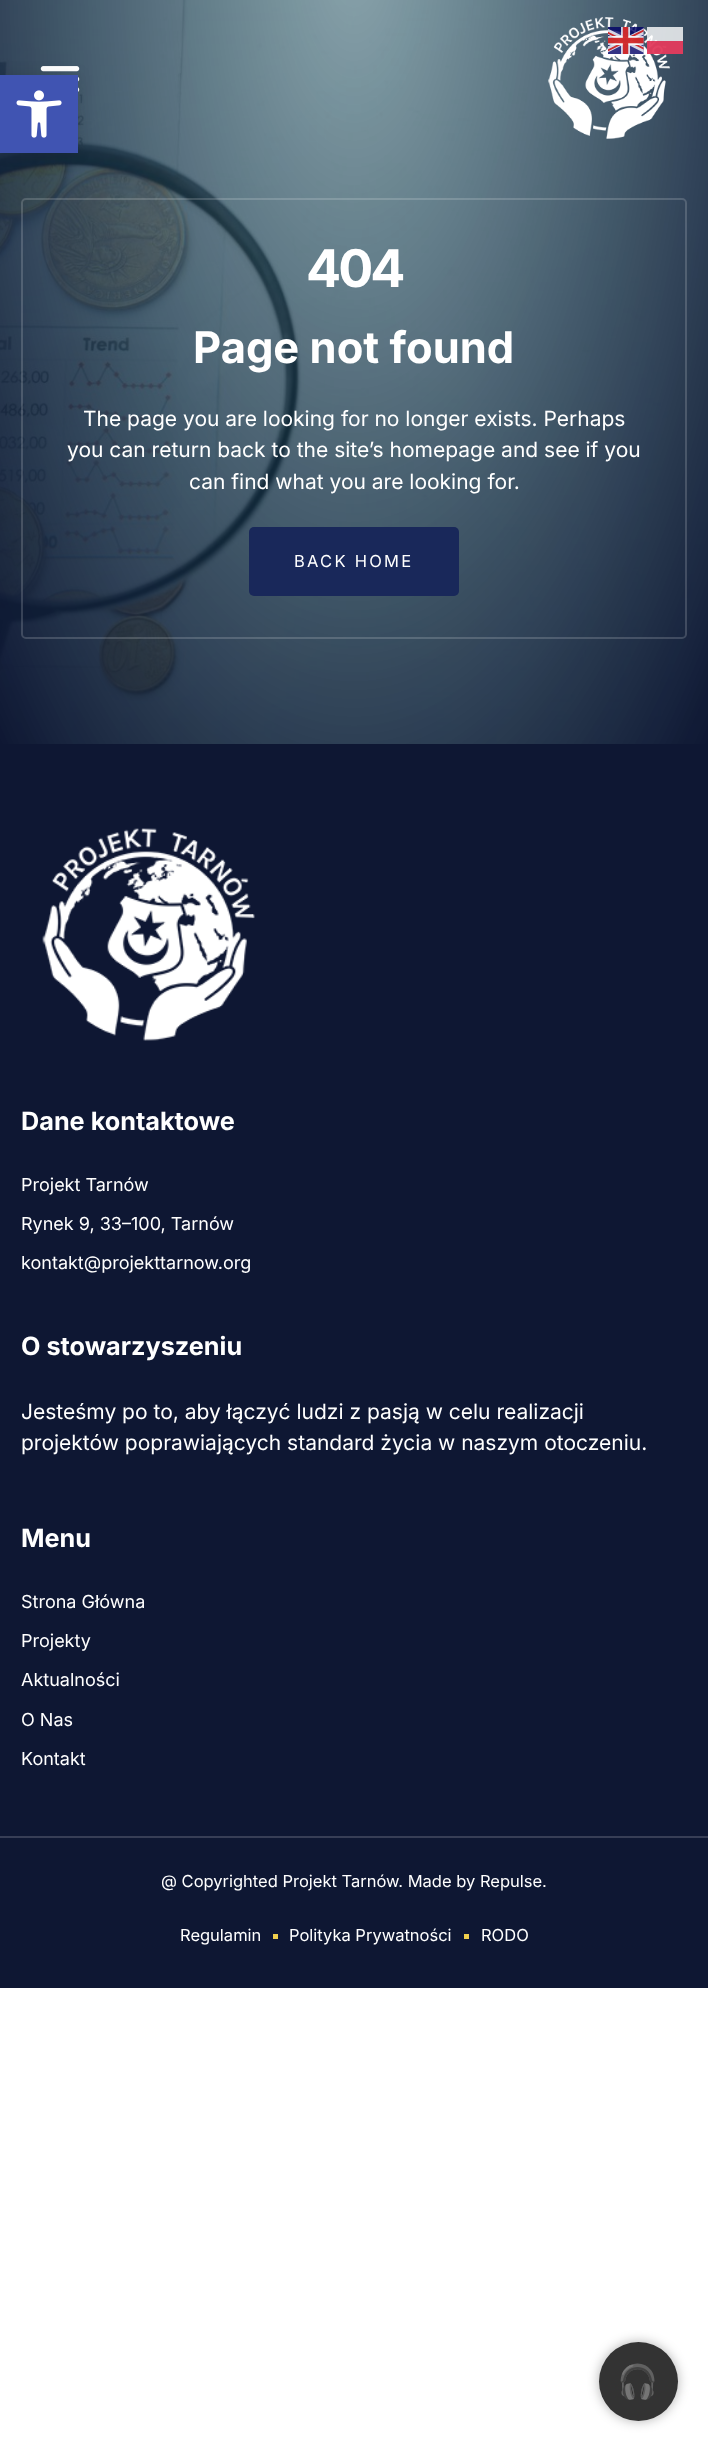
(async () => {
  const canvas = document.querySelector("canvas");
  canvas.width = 708;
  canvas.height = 2450;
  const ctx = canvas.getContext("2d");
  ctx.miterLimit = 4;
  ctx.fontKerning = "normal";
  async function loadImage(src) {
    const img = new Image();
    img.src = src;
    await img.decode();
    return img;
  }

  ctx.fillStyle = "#ffffff";
  ctx.fillRect(0, 0, 708, 2450);
  ctx.drawImage(await loadImage("img/5.png"), 0, 0, 708, 744);
  ctx.drawImage(await loadImage("img/1.png"), 40, 66, 40, 26);
  ctx.drawImage(await loadImage("img/2.png"), 548, 17, 122, 122);
  ctx.drawImage(await loadImage("img/3.png"), 608, 27, 36, 27);
  ctx.fillStyle = "rgba(255, 255, 255, 0.8)";
  ctx.fillRect(647, 27, 36, 27);
  ctx.fillStyle = "rgba(220, 20, 60, 0.8)";
  ctx.fillRect(647, 41, 36, 13);
  ctx.fillStyle = "rgba(0, 0, 0, 0.1)";
  ctx.filter = "blur(7.5px)";
  ctx.beginPath();
  ctx.rect(0, 75, 78, 78);
  ctx.fill();
  ctx.filter = "none";
  ctx.fillStyle = "#4054b2";
  ctx.fillRect(0, 75, 78, 78);
  ctx.drawImage(await loadImage("img/4.png"), 16, 90, 46, 48);
  ctx.beginPath();
  ctx.roundRect(22, 199, 664, 439, 4);
  ctx.strokeStyle = "rgba(255, 255, 255, 0.17)";
  ctx.lineWidth = 2;
  ctx.stroke();
  ctx.fillStyle = "#19285a";
  ctx.beginPath();
  ctx.roundRect(249, 527, 210, 69, 5);
  ctx.fill();
  ctx.fillStyle = "#0e1733";
  ctx.fillRect(0, 744, 708, 1244);
  ctx.fillStyle = "#373e56";
  ctx.fillRect(0, 1836, 708, 2);
  ctx.drawImage(await loadImage("img/6.png"), 42, 828, 213, 213);
  ctx.fillStyle = "#f0cf4d";
  ctx.fillRect(273, 1934, 5, 5);
  ctx.fillRect(464, 1934, 5, 5);
  ctx.fillStyle = "rgba(0, 0, 0, 0.3)";
  ctx.filter = "blur(6px)";
  ctx.beginPath();
  ctx.roundRect(599, 2342, 79, 79, 39.5);
  ctx.fill();
  ctx.filter = "none";
  ctx.fillStyle = "#333333";
  ctx.beginPath();
  ctx.arc(638.5, 2381.5, 39.5, 0, Math.PI * 2);
  ctx.fill();
  ctx.letterSpacing = "-3px";
  ctx.font = "bold 52px Inter";
  ctx.fillStyle = "#ffffff";
  ctx.fillText("404", 306, 287);
  ctx.letterSpacing = "0px";
  ctx.font = "bold 43.5px Inter";
  ctx.fillText("Page not found", 193, 363);
  ctx.font = "21px Inter";
  for (const [text, x, y] of [
    ["The page you are looking for no longer exists. Perhaps", 83, 426],
    ["you can return back to the site’s homepage and see if you", 67, 457],
    ["can find what you are looking for.", 189, 489],
  ]) {
    ctx.fillText(text, x, y);
  }
  ctx.letterSpacing = "2.25px";
  ctx.font = "16.5px Inter";
  ctx.fillText("BACK HOME", 294, 567);
  ctx.letterSpacing = "0px";
  ctx.font = "bold 25.25px Inter";
  ctx.fillText("Dane kontaktowe", 21, 1130);
  ctx.font = "18px Inter";
  for (const [text, x, y] of [
    ["Projekt Tarnów", 21, 1191],
    ["Rynek 9, 33–100, Tarnów", 21, 1230],
    ["kontakt@projekttarnow.org", 21, 1269],
  ]) {
    ctx.fillText(text, x, y);
  }
  ctx.font = "bold 25.25px Inter";
  ctx.fillText("O stowarzyszeniu", 21, 1355);
  ctx.font = "21px Inter";
  ctx.fillText("Jesteśmy po to, aby łączyć ludzi z pasją w celu realizacji", 21, 1419);
  ctx.fillText("projektów poprawiających standard życia w naszym otoczeniu.", 21, 1450);
  ctx.font = "bold 25.25px Inter";
  ctx.fillText("Menu", 21, 1547);
  ctx.font = "18px Inter";
  for (const [text, x, y] of [
    ["Strona Główna", 21, 1608],
    ["Projekty", 21, 1647],
    ["Aktualności", 21, 1686],
    ["O Nas", 21, 1726],
    ["Kontakt", 21, 1765],
  ]) {
    ctx.fillText(text, x, y);
  }
  ctx.font = "16.5px Inter";
  for (const [text, x, y] of [
    ["@ Copyrighted Projekt Tarnów. Made by Repulse.", 161, 1887],
    ["Regulamin", 180, 1941],
    ["Polityka Prywatności", 289, 1941],
    ["RODO", 481, 1941],
  ]) {
    ctx.fillText(text, x, y);
  }
  ctx.letterSpacing = "2.25px";
  ctx.font = "33px Noto Color Emoji";
  ctx.fillText("🎧", 617, 2393);
})();
